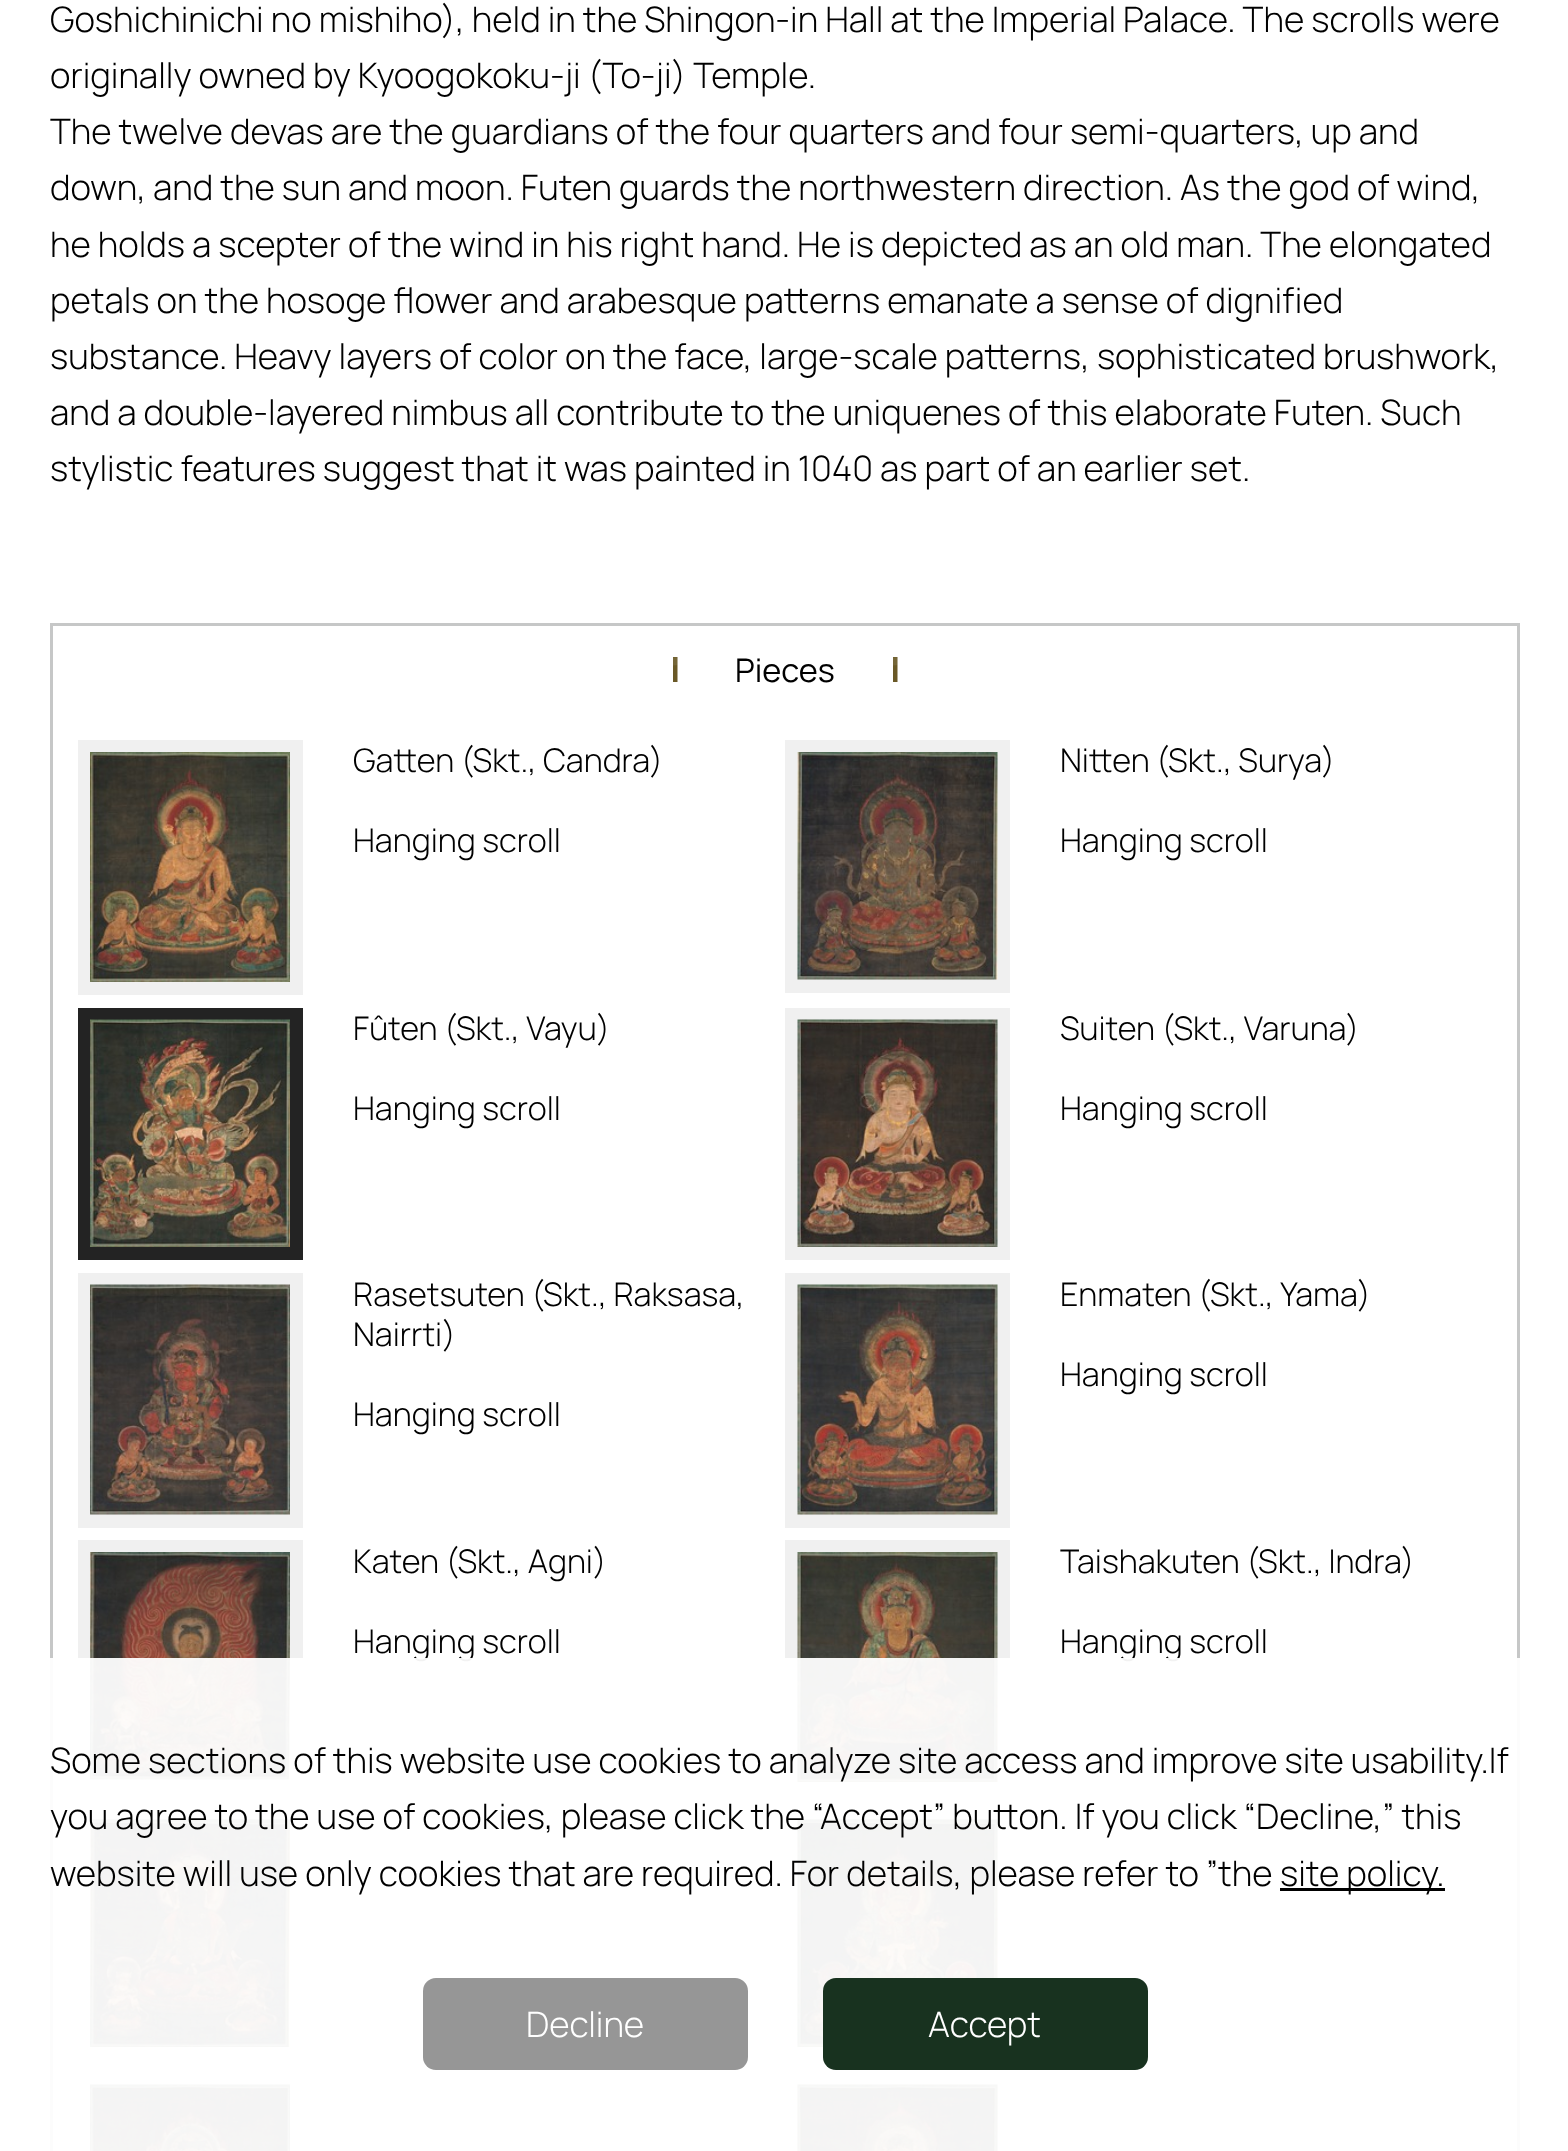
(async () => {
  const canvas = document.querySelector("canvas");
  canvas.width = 1568;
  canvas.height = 2151;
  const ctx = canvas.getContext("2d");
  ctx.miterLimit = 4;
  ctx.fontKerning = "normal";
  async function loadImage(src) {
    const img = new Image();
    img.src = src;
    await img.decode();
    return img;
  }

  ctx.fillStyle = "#ffffff";
  ctx.fillRect(0, 0, 1568, 2151);
  ctx.strokeStyle = "#c6c7c7";
  ctx.lineWidth = 3;
  ctx.strokeRect(51.5, 624.5, 1467, 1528);
  ctx.drawImage(await loadImage("img/1.png"), 673, 657, 225, 25);
  ctx.fillStyle = "#f0f0f0";
  ctx.fillRect(78, 740, 225, 255);
  ctx.drawImage(await loadImage("img/2.png"), 90, 752, 200, 230);
  ctx.fillRect(785, 740, 225, 253);
  ctx.drawImage(await loadImage("img/3.png"), 797, 752, 201, 228);
  ctx.fillStyle = "#232323";
  ctx.fillRect(78, 1008, 225, 252);
  ctx.drawImage(await loadImage("img/4.png"), 90, 1019, 200, 228);
  ctx.fillStyle = "#f0f0f0";
  ctx.fillRect(785, 1008, 225, 252);
  ctx.drawImage(await loadImage("img/5.png"), 797, 1019, 201, 228);
  ctx.fillRect(78, 1273, 225, 255);
  ctx.drawImage(await loadImage("img/6.png"), 90, 1284, 200, 231);
  ctx.fillRect(785, 1273, 225, 255);
  ctx.drawImage(await loadImage("img/7.png"), 797, 1284, 201, 231);
  ctx.fillRect(78, 1540, 225, 253);
  ctx.drawImage(await loadImage("img/8.png"), 90, 1552, 200, 228);
  ctx.fillRect(785, 1540, 225, 255);
  ctx.drawImage(await loadImage("img/9.png"), 797, 1552, 201, 230);
  ctx.fillRect(78, 1808, 225, 252);
  ctx.drawImage(await loadImage("img/10.png"), 90, 1819, 200, 228);
  ctx.fillRect(785, 1808, 225, 252);
  ctx.drawImage(await loadImage("img/11.png"), 797, 1819, 201, 228);
  ctx.fillRect(78, 2073, 225, 78);
  ctx.drawImage(await loadImage("img/12.png"), 90, 2084, 200, 67);
  ctx.fillRect(785, 2073, 225, 78);
  ctx.drawImage(await loadImage("img/13.png"), 797, 2084, 201, 67);
  ctx.font = "300 35.1px Manrope";
  ctx.fillStyle = "#000000";
  for (const [text, x, y] of [
    ["Goshichinichi no mishiho), held in the Shingon-in Hall at the Imperial Palace. The scrolls were", 50, 32],
    ["originally owned by Kyoogokoku-ji (To-ji) Temple.", 50, 88],
    ["The twelve devas are the guardians of the four quarters and four semi-quarters, up and", 50, 144],
    ["down, and the sun and moon. Futen guards the northwestern direction. As the god of wind,", 50, 200],
    ["he holds a scepter of the wind in his right hand. He is depicted as an old man. The elongated", 50, 257],
    ["petals on the hosoge flower and arabesque patterns emanate a sense of dignified", 50, 313],
    ["substance. Heavy layers of color on the face, large-scale patterns, sophisticated brushwork,", 50, 369],
    ["and a double-layered nimbus all contribute to the uniquenes of this elaborate Futen. Such", 50, 425],
    ["stylistic features suggest that it was painted in 1040 as part of an earlier set.", 50, 481],
  ]) {
    ctx.fillText(text, x, y);
  }
  ctx.font = "32.5px Manrope";
  ctx.fillText("Pieces", 735, 682);
  ctx.font = "300 32.5px Manrope";
  for (const [text, x, y] of [
    ["Gatten (Skt., Candra)", 353, 772],
    ["Hanging scroll", 353, 852],
    ["Nitten (Skt., Surya)", 1060, 772],
    ["Hanging scroll", 1060, 852],
    ["Fûten (Skt., Vayu)", 353, 1040],
    ["Hanging scroll", 353, 1120],
    ["Suiten (Skt., Varuna)", 1060, 1040],
    ["Hanging scroll", 1060, 1120],
    ["Rasetsuten (Skt., Raksasa,", 353, 1306],
    ["Nairrti)", 353, 1346],
    ["Hanging scroll", 353, 1426],
    ["Enmaten (Skt., Yama)", 1060, 1306],
    ["Hanging scroll", 1060, 1386],
    ["Katen (Skt., Agni)", 353, 1573],
    ["Hanging scroll", 353, 1653],
    ["Taishakuten (Skt., Indra)", 1060, 1573],
    ["Hanging scroll", 1060, 1653],
  ]) {
    ctx.fillText(text, x, y);
  }
  ctx.fillStyle = "rgba(255, 255, 255, 0.95)";
  ctx.fillRect(50, 1658, 1470, 493);
  ctx.font = "300 35.1px Manrope";
  ctx.fillStyle = "#000000";
  for (const [text, x, y] of [
    ["Some sections of this website use cookies to analyze site access and improve site usability.If", 50, 1773],
    ["you agree to the use of cookies, please click the “Accept” button. If you click “Decline,” this", 50, 1829],
    ["website will use only cookies that are required. For details, please refer to ”the", 50, 1886],
  ]) {
    ctx.fillText(text, x, y);
  }
  ctx.fillRect(1280, 1888, 165, 3);
  ctx.fillText("site policy.", 1280, 1886);
  ctx.fillStyle = "#969696";
  ctx.beginPath();
  ctx.roundRect(423, 1978, 325, 92, 13);
  ctx.fill();
  ctx.fillStyle = "#ffffff";
  ctx.fillText("Decline", 526, 2037);
  ctx.fillStyle = "#18321f";
  ctx.beginPath();
  ctx.roundRect(823, 1978, 325, 92, 13);
  ctx.fill();
  ctx.fillStyle = "#ffffff";
  ctx.fillText("Accept", 928, 2037);
})();
